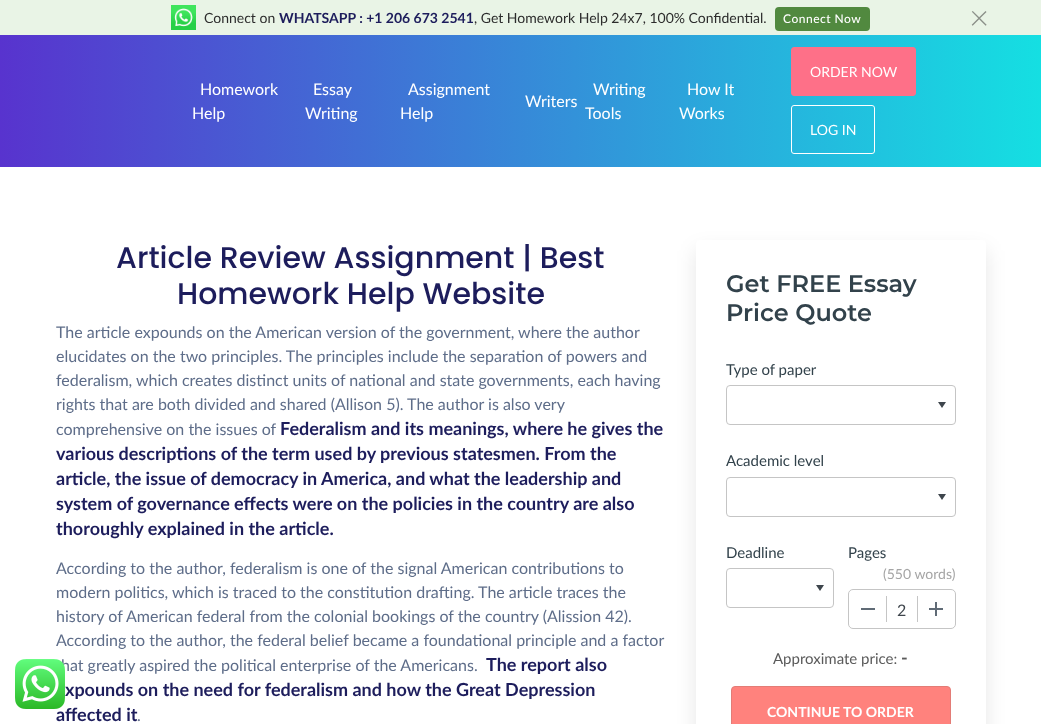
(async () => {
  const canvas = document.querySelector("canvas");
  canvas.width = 1041;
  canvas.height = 724;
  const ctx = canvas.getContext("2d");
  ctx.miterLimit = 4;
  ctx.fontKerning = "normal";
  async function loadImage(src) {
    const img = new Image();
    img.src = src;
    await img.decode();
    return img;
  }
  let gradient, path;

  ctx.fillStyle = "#ffffff";
  ctx.fillRect(0, 0, 1041, 724);
  ctx.fillStyle = "#e9f4e6";
  ctx.fillRect(0, 0, 1041, 35);
  ctx.drawImage(await loadImage("img/1.png"), 171, 5, 25, 25);
  ctx.fillStyle = "#51893f";
  ctx.beginPath();
  ctx.roundRect(775, 7, 95, 24, 4);
  ctx.fill();
  gradient = ctx.createLinearGradient(0, 101, 1041, 101);
  gradient.addColorStop(0, "#5833ce");
  gradient.addColorStop(1, "#15dfe2");
  ctx.fillStyle = gradient;
  ctx.fillRect(0, 35, 1041, 132);
  ctx.fillStyle = "#fe7088";
  ctx.beginPath();
  ctx.roundRect(791.5, 47.5, 124, 48, 2.5);
  ctx.fill();
  ctx.strokeStyle = "#fe7088";
  ctx.stroke();
  ctx.beginPath();
  ctx.roundRect(791.5, 105.5, 83, 48, 2.5);
  ctx.strokeStyle = "#ffffff";
  ctx.stroke();
  ctx.save();
  path = new Path2D("M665 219H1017V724H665ZM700 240H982C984 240 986 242 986 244V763C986 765 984 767 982 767H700C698 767 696 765 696 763V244C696 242 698 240 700 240Z");
  ctx.clip(path, "evenodd");
  ctx.fillStyle = "rgba(0, 0, 0, 0.1)";
  ctx.filter = "blur(10px)";
  ctx.beginPath();
  ctx.roundRect(696, 250, 290, 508, 4);
  ctx.fill();
  ctx.filter = "none";
  ctx.restore();
  ctx.fillStyle = "#3e454c";
  path = new Path2D("M938 402H946L942 408Z");
  ctx.fill(path);
  ctx.beginPath();
  ctx.roundRect(726.5, 385.5, 229, 39, 3.5);
  ctx.strokeStyle = "#c5c5c5";
  ctx.stroke();
  path = new Path2D("M938 494H946L942 500Z");
  ctx.fill(path);
  ctx.beginPath();
  ctx.roundRect(726.5, 477.5, 229, 39, 3.5);
  ctx.stroke();
  path = new Path2D("M816 585H824L820 591Z");
  ctx.fill(path);
  ctx.beginPath();
  ctx.roundRect(726.5, 568.5, 107, 39, 3.5);
  ctx.stroke();
  ctx.beginPath();
  ctx.roundRect(848.5, 589.5, 107, 39, 4.5);
  ctx.stroke();
  for (const [x, y, w, h, color] of [
    [861, 608, 14, 2, "#606b76"],
    [886, 596, 1, 26, "#c5c5c5"],
    [917, 596, 1, 26, "#c5c5c5"],
    [929, 608, 14, 2, "#606b76"],
    [935, 602, 2, 14, "#606b76"],
  ]) {
    ctx.fillStyle = color;
    ctx.fillRect(x, y, w, h);
  }
  ctx.fillStyle = "#ff827d";
  ctx.beginPath();
  ctx.roundRect(731.5, 686.5, 219, 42, 3.5);
  ctx.fill();
  ctx.strokeStyle = "#e37c76";
  ctx.stroke();
  ctx.font = "14px Lato";
  ctx.fillStyle = "#2c2c2c";
  ctx.fillText("Connect on", 204, 23);
  ctx.font = "bold 14px Lato";
  ctx.fillStyle = "#1d1d5c";
  ctx.fillText("WHATSAPP : +1 206 673 2541", 279, 23);
  ctx.font = "14px Lato";
  ctx.fillStyle = "#2c2c2c";
  ctx.fillText(", Get Homework Help 24x7, 100% Confidential.", 474, 23);
  ctx.letterSpacing = "0.5px";
  ctx.font = "500 12px Lato";
  ctx.fillStyle = "#ffffff";
  ctx.fillText("Connect Now", 783, 23);
  ctx.letterSpacing = "0px";
  ctx.font = "300 35px Lato";
  ctx.fillStyle = "#8b9089";
  ctx.fillText("×", 969, 30);
  ctx.font = "16px Lato";
  ctx.fillStyle = "#ffffff";
  for (const [text, x, y] of [
    ["Homework", 200, 95],
    ["Help", 192, 119],
    ["Essay", 313, 95],
    ["Writing", 305, 119],
    ["Assignment", 408, 95],
    ["Help", 400, 119],
    ["Writers", 525, 107],
    ["Writing", 593, 95],
    ["Tools", 585, 119],
    ["How It", 687, 95],
    ["Works", 679, 119],
  ]) {
    ctx.fillText(text, x, y);
  }
  ctx.font = "14px Lato";
  ctx.fillText("ORDER NOW", 810, 77);
  ctx.fillText("LOG IN", 810, 135);
  ctx.font = "500 30px Poppins";
  ctx.fillStyle = "#1d1d5c";
  ctx.fillText("Article Review Assignment | Best", 116, 268);
  ctx.fillText("Homework Help Website", 177, 304);
  ctx.font = "16px Lato";
  ctx.fillStyle = "#5e6d89";
  for (const [text, x, y] of [
    ["The article expounds on the American version of the government, where the author", 56, 338],
    ["elucidates on the two principles. The principles include the separation of powers and", 56, 362],
    ["federalism, which creates distinct units of national and state governments, each having", 56, 386],
    ["rights that are both divided and shared (Allison 5). The author is also very", 56, 410],
    ["comprehensive on the issues of", 56, 435],
  ]) {
    ctx.fillText(text, x, y);
  }
  ctx.font = "bold 18px Lato";
  ctx.fillStyle = "#1d1d5c";
  for (const [text, x, y] of [
    ["Federalism and its meanings, where he gives the", 280, 435],
    ["various descriptions of the term used by previous statesmen. From the", 56, 460],
    ["article, the issue of democracy in America, and what the leadership and", 56, 485],
    ["system of governance effects were on the policies in the country are also", 56, 510],
    ["thoroughly explained in the article.", 56, 535],
  ]) {
    ctx.fillText(text, x, y);
  }
  ctx.font = "16px Lato";
  ctx.fillStyle = "#5e6d89";
  for (const [text, x, y] of [
    ["According to the author, federalism is one of the signal American contributions to", 56, 574],
    ["modern politics, which is traced to the constitution drafting. The article traces the", 56, 598],
    ["history of American federal from the colonial bookings of the country (Alission 42).", 56, 622],
    ["According to the author, the federal belief became a foundational principle and a factor", 56, 646],
    ["hat greatly aspired the political enterprise of the Americans.", 61, 671],
  ]) {
    ctx.fillText(text, x, y);
  }
  ctx.font = "bold 18px Lato";
  ctx.fillStyle = "#1d1d5c";
  for (const [text, x, y] of [
    ["The report also", 486, 671],
    ["xpounds on the need for federalism and how the Great Depression", 65, 696],
    ["affected it", 56, 721],
  ]) {
    ctx.fillText(text, x, y);
  }
  ctx.drawImage(await loadImage("img/2.png"), 15, 659, 50, 50);
  ctx.font = "16px Lato";
  ctx.fillStyle = "#5e6d89";
  ctx.fillText(".", 137, 721);
  ctx.font = "600 24px Montserrat";
  ctx.fillStyle = "#32424b";
  ctx.fillText("Get FREE Essay", 726, 292);
  ctx.fillText("Price Quote", 726, 321);
  ctx.font = "15px Lato";
  for (const [text, x, y] of [
    ["Type of paper", 726, 375],
    ["Academic level", 726, 466],
    ["Deadline", 726, 558],
    ["Pages", 848, 558],
  ]) {
    ctx.fillText(text, x, y);
  }
  ctx.font = "14px Lato";
  ctx.fillStyle = "#a5a5a5";
  ctx.fillText("(550 words)", 883, 579);
  ctx.font = "16px Lato";
  ctx.fillStyle = "#3e454c";
  ctx.fillText("2", 897, 616);
  ctx.font = "15px Lato";
  ctx.fillStyle = "#5a5a5a";
  ctx.fillText("Approximate price:", 773, 664);
  ctx.font = "bold 18px Lato";
  ctx.fillText("-", 901, 664);
  ctx.font = "bold 14px Lato";
  ctx.fillStyle = "#ffffff";
  ctx.fillText("CONTINUE TO ORDER", 767, 717);
})();
